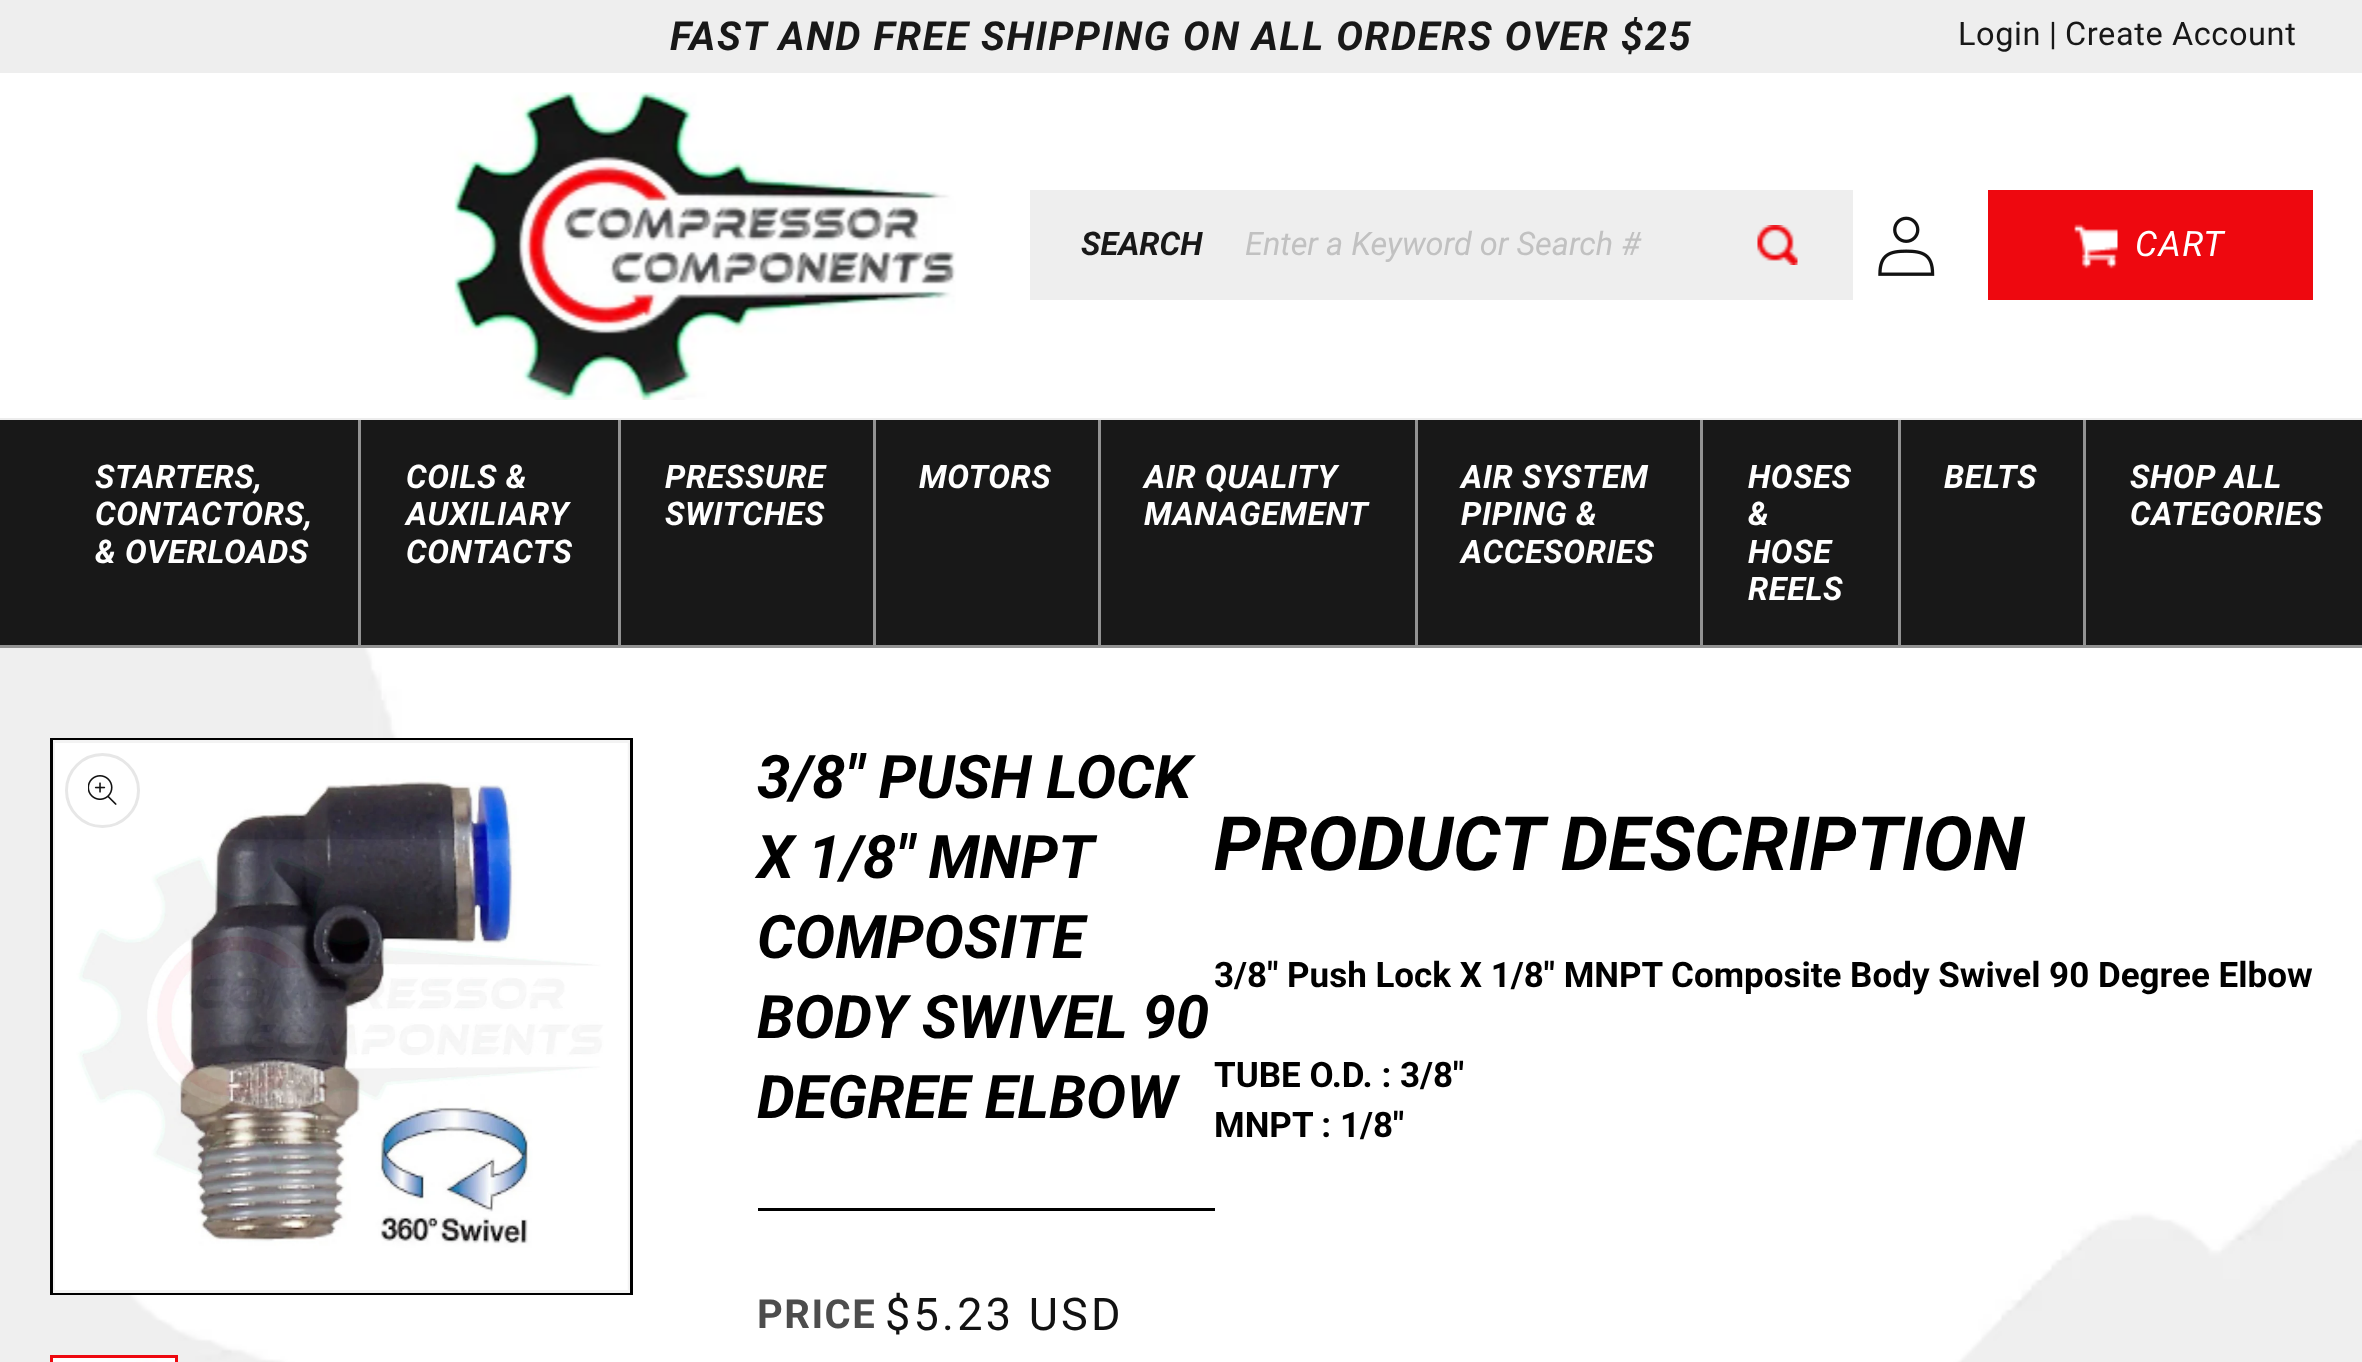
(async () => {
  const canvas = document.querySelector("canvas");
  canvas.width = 2362;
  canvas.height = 1362;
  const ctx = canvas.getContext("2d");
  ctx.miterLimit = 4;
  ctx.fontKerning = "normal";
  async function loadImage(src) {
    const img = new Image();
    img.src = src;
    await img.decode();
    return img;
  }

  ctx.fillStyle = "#ffffff";
  ctx.fillRect(0, 0, 2362, 1362);
  ctx.drawImage(await loadImage("img/1.png"), 0, 648, 2362, 714);
  ctx.fillStyle = "#eeeeee";
  ctx.fillRect(0, 0, 2362, 73);
  ctx.fillStyle = "rgba(18, 18, 18, 0.08)";
  ctx.fillRect(0, 418, 2362, 2);
  ctx.drawImage(await loadImage("img/2.png"), 454, 92, 502, 308);
  ctx.fillStyle = "#eeeeee";
  ctx.fillRect(1030, 190, 823, 110);
  ctx.drawImage(await loadImage("img/3.png"), 1757, 225, 41, 40);
  ctx.drawImage(await loadImage("img/4.png"), 1878, 216, 57, 60);
  ctx.fillStyle = "#ee080f";
  ctx.fillRect(1988, 190, 325, 110);
  ctx.drawImage(await loadImage("img/5.png"), 2074, 224, 44, 45);
  for (const [x, y, w, h, color] of [
    [0, 420, 2362, 225, "#181818"],
    [0, 645, 2362, 3, "#929292"],
    [358, 420, 3, 225, "#929292"],
    [618, 420, 3, 225, "#929292"],
    [873, 420, 3, 225, "#929292"],
    [1098, 420, 3, 225, "#929292"],
    [1415, 420, 3, 225, "#929292"],
    [1700, 420, 3, 225, "#929292"],
    [1898, 420, 3, 225, "#929292"],
    [2083, 420, 3, 225, "#929292"],
  ]) {
    ctx.fillStyle = color;
    ctx.fillRect(x, y, w, h);
  }
  ctx.strokeStyle = "#000000";
  ctx.lineWidth = 3;
  ctx.strokeRect(51.5, 739.5, 580, 554);
  ctx.strokeStyle = "#f3f3f3";
  ctx.strokeRect(54.5, 741.5, 574, 550);
  ctx.drawImage(await loadImage("img/6.png"), 55, 743, 573, 547);
  ctx.beginPath();
  ctx.arc(102.5, 790.5, 36, 0, Math.PI * 2);
  ctx.strokeStyle = "#e7e7e7";
  ctx.stroke();
  ctx.drawImage(await loadImage("img/7.png"), 88, 775, 29, 30);
  ctx.strokeStyle = "#ee080f";
  ctx.strokeRect(51.5, 1356.5, 125, 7);
  ctx.drawImage(await loadImage("img/8.png"), 53, 1358, 122, 4);
  ctx.fillStyle = "#000000";
  ctx.fillRect(758, 1208, 457, 3);
  ctx.letterSpacing = "1.6px";
  ctx.font = "italic bold 40px Roboto";
  ctx.fillStyle = "#181818";
  ctx.fillText("FAST AND FREE SHIPPING ON ALL ORDERS OVER $25", 670, 50);
  ctx.letterSpacing = "0.6px";
  ctx.font = "32.5px Roboto";
  ctx.fillText("Login", 1958, 45);
  ctx.letterSpacing = "0px";
  ctx.fillText("|", 2049, 45);
  ctx.letterSpacing = "0.6px";
  ctx.fillText("Create Account", 2065, 45);
  ctx.letterSpacing = "0px";
  ctx.font = "italic bold 32.5px Roboto";
  ctx.fillText("SEARCH", 1081, 255);
  ctx.font = "italic 32.5px Roboto";
  ctx.fillStyle = "#c1c1c1";
  ctx.fillText("Enter a Keyword or Search #", 1245, 255);
  ctx.letterSpacing = "1.5px";
  ctx.font = "italic 35px Roboto";
  ctx.fillStyle = "#ffffff";
  ctx.fillText("CART", 2135, 256);
  ctx.letterSpacing = "0.6px";
  ctx.font = "italic bold 32.5px Roboto";
  for (const [text, x, y] of [
    ["STARTERS,", 95, 488],
    ["CONTACTORS,", 95, 525],
    ["& OVERLOADS", 95, 563],
    ["COILS &", 406, 488],
    ["AUXILIARY", 406, 525],
    ["CONTACTS", 406, 563],
    ["PRESSURE", 665, 488],
    ["SWITCHES", 665, 525],
    ["MOTORS", 919, 488],
    ["AIR QUALITY", 1144, 488],
    ["MANAGEMENT", 1144, 525],
    ["AIR SYSTEM", 1461, 488],
    ["PIPING &", 1461, 525],
    ["ACCESORIES", 1461, 563],
    ["HOSES", 1748, 488],
    ["&", 1748, 525],
    ["HOSE", 1748, 563],
    ["REELS", 1748, 600],
    ["BELTS", 1944, 488],
    ["SHOP ALL", 2130, 488],
    ["CATEGORIES", 2130, 525],
  ]) {
    ctx.fillText(text, x, y);
  }
  ctx.letterSpacing = "0px";
  ctx.font = "italic bold 60px Roboto";
  ctx.fillStyle = "#000000";
  ctx.fillText("3/8\" PUSH LOCK", 757, 798);
  ctx.wordSpacing = "-1px";
  ctx.fillText("X 1/8\" MNPT", 757, 878);
  ctx.wordSpacing = "0px";
  for (const [text, x, y] of [
    ["COMPOSITE", 757, 958],
    ["BODY SWIVEL 90", 757, 1038],
    ["DEGREE ELBOW", 757, 1118],
  ]) {
    ctx.fillText(text, x, y);
  }
  ctx.letterSpacing = "1.5px";
  ctx.font = "bold 40px Roboto";
  ctx.fillStyle = "#4d4d4d";
  ctx.fillText("PRICE", 757, 1328);
  ctx.letterSpacing = "3.25px";
  ctx.font = "45px Roboto";
  ctx.fillStyle = "#121212";
  ctx.fillText("$5.23 USD", 885, 1330);
  ctx.letterSpacing = "0px";
  ctx.font = "italic bold 75px Roboto";
  ctx.fillStyle = "#000000";
  ctx.fillText("PRODUCT DESCRIPTION", 1214, 870);
  ctx.font = "bold 35px Roboto";
  for (const [text, x, y] of [
    ["3/8\" Push Lock X 1/8\" MNPT Composite Body Swivel 90 Degree Elbow", 1214, 987],
    ["TUBE O.D. : 3/8\"", 1214, 1087],
    ["MNPT : 1/8\"", 1214, 1137],
  ]) {
    ctx.fillText(text, x, y);
  }
})();
